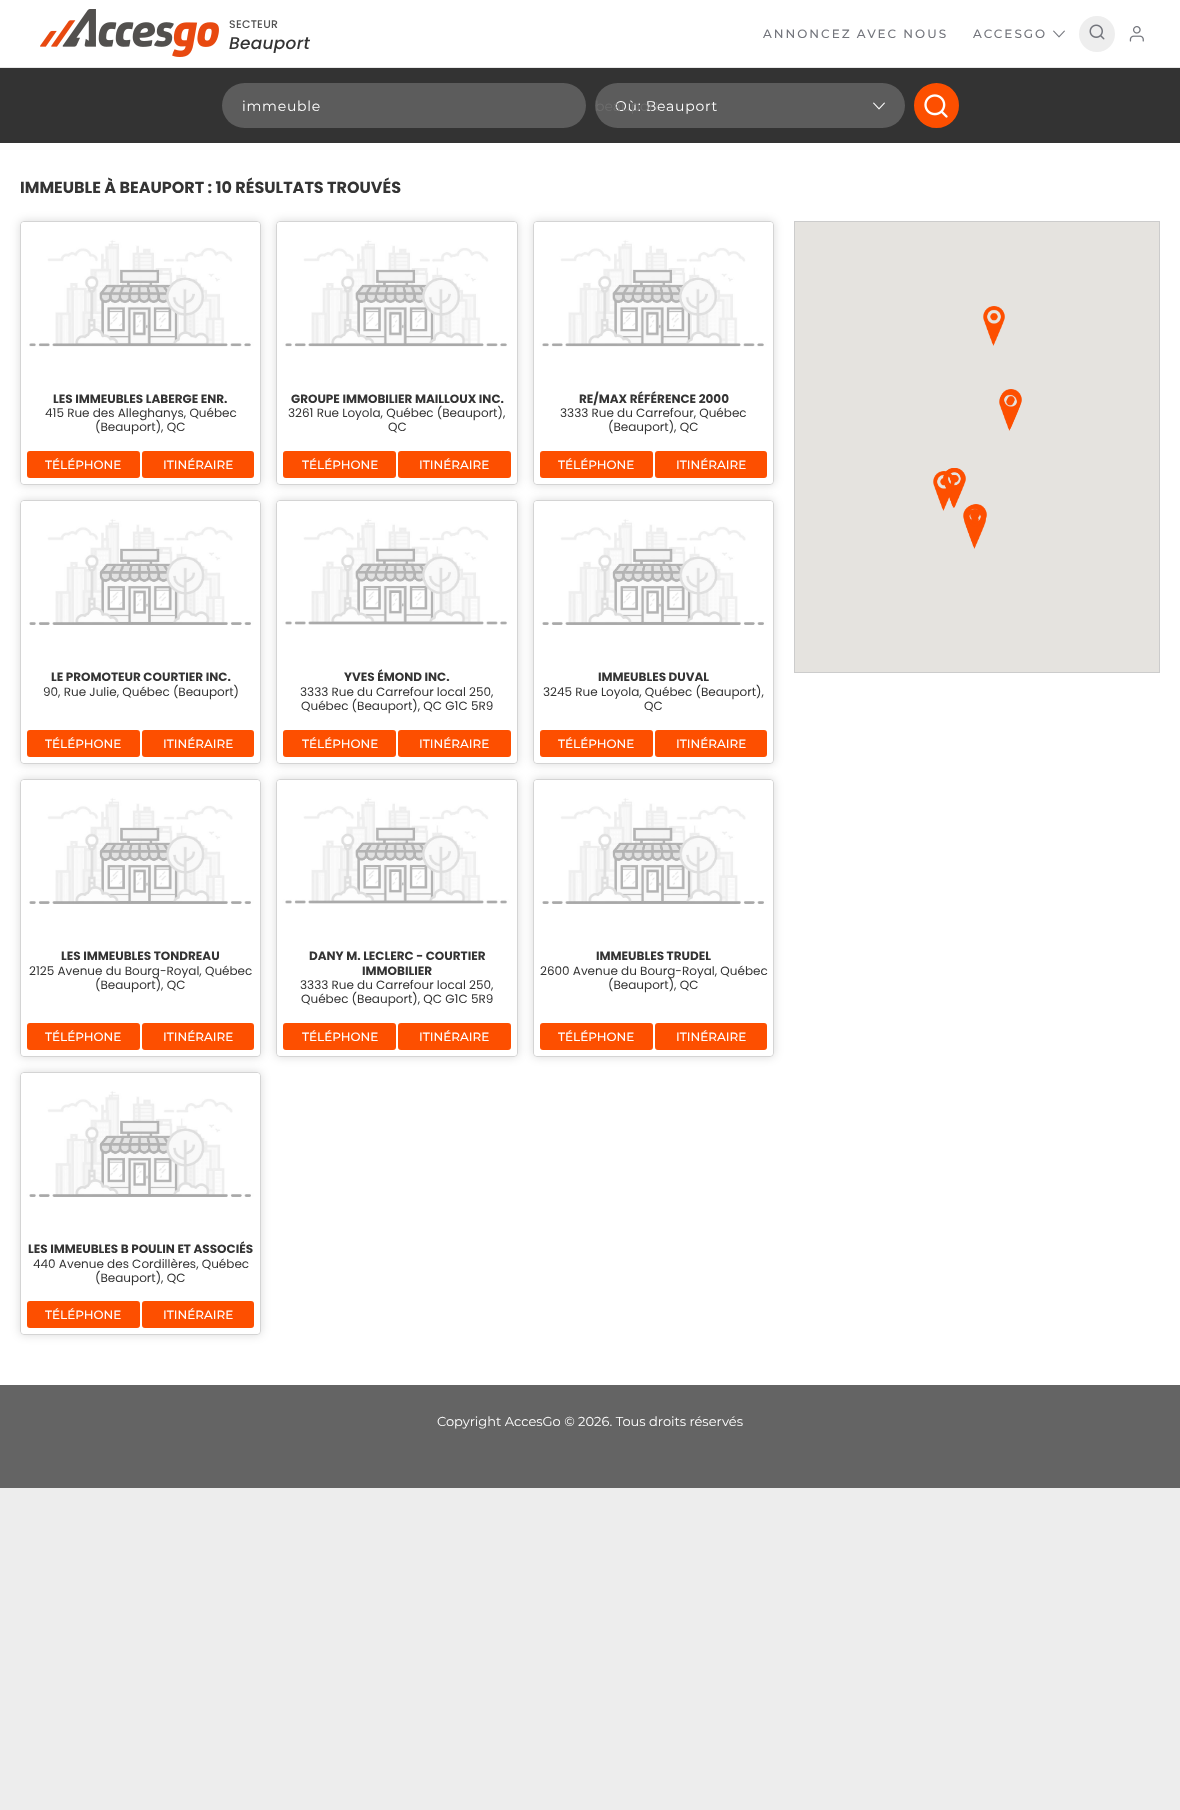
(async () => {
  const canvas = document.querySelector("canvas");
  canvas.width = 1180;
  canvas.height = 1810;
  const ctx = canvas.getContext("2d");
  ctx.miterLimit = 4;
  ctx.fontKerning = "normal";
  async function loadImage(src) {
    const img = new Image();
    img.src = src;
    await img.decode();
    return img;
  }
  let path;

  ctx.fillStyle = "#ededed";
  ctx.fillRect(0, 0, 1180, 1810);
  ctx.fillStyle = "#ffffff";
  ctx.fillRect(0, 0, 1180, 67);
  ctx.fillStyle = "#e8e8e8";
  ctx.fillRect(0, 67, 1180, 1);
  ctx.drawImage(await loadImage("img/1.png"), 40, 9, 179, 48);
  ctx.drawImage(await loadImage("img/2.png"), 1053, 30, 12, 8);
  ctx.fillStyle = "#eeeeee";
  ctx.beginPath();
  ctx.arc(1097, 34, 18, 0, Math.PI * 2);
  ctx.fill();
  ctx.drawImage(await loadImage("img/3.png"), 1089, 24, 16, 16);
  ctx.drawImage(await loadImage("img/4.png"), 1129, 26, 15, 16);
  ctx.fillStyle = "#333333";
  ctx.fillRect(0, 68, 1180, 75);
  ctx.fillStyle = "#5c5c5c";
  ctx.beginPath();
  ctx.roundRect(222, 83, 364, 45, 22.5);
  ctx.fill();
  ctx.beginPath();
  ctx.roundRect(595, 83, 310, 45, 22.5);
  ctx.fill();
  ctx.drawImage(await loadImage("img/5.png"), 873, 102, 12, 8);
  ctx.fillStyle = "#fd4f00";
  ctx.beginPath();
  ctx.arc(936.5, 105.5, 21.5, 0, Math.PI * 2);
  ctx.fill();
  ctx.strokeStyle = "#fd4f00";
  ctx.lineWidth = 2;
  ctx.stroke();
  ctx.drawImage(await loadImage("img/6.png"), 924, 94, 24, 24);
  ctx.fillStyle = "#ffffff";
  ctx.fillRect(0, 143, 1180, 1242);
  ctx.save();
  path = new Path2D("M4 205H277V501H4ZM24 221H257C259 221 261 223 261 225V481C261 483 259 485 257 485H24C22 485 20 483 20 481V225C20 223 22 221 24 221Z");
  ctx.clip(path, "evenodd");
  ctx.fillStyle = "rgba(0, 0, 0, 0.15)";
  ctx.filter = "blur(5px)";
  ctx.beginPath();
  ctx.roundRect(20, 221, 241, 264, 4);
  ctx.fill();
  ctx.filter = "none";
  ctx.restore();
  ctx.beginPath();
  ctx.roundRect(20.5, 221.5, 240, 263, 3.5);
  ctx.strokeStyle = "#d4d4d4";
  ctx.lineWidth = 1;
  ctx.stroke();
  ctx.beginPath();
  ctx.roundRect(21, 222, 239, 150, [4, 4, 0, 0]);
  ctx.fill();
  ctx.drawImage(await loadImage("img/7.png"), 21, 222, 239, 125);
  ctx.beginPath();
  ctx.roundRect(21, 440, 239, 44, [0, 0, 4, 4]);
  ctx.fill();
  ctx.fillStyle = "#fd4f00";
  ctx.beginPath();
  ctx.roundRect(28, 452, 111, 25, 2);
  ctx.fill();
  ctx.strokeStyle = "#fd4f00";
  ctx.lineWidth = 2;
  ctx.stroke();
  ctx.beginPath();
  ctx.roundRect(143, 452, 110, 25, 2);
  ctx.fill();
  ctx.stroke();
  ctx.save();
  path = new Path2D("M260 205H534V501H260ZM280 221H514C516 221 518 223 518 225V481C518 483 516 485 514 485H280C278 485 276 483 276 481V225C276 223 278 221 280 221Z");
  ctx.clip(path, "evenodd");
  ctx.fillStyle = "rgba(0, 0, 0, 0.15)";
  ctx.filter = "blur(5px)";
  ctx.beginPath();
  ctx.roundRect(276, 221, 242, 264, 4);
  ctx.fill();
  ctx.filter = "none";
  ctx.restore();
  ctx.beginPath();
  ctx.roundRect(276.5, 221.5, 241, 263, 3.5);
  ctx.strokeStyle = "#d4d4d4";
  ctx.lineWidth = 1;
  ctx.stroke();
  ctx.fillStyle = "#ffffff";
  ctx.beginPath();
  ctx.roundRect(277, 222, 240, 150, [4, 4, 0, 0]);
  ctx.fill();
  ctx.drawImage(await loadImage("img/8.png"), 277, 222, 239, 125);
  ctx.beginPath();
  ctx.roundRect(277, 440, 240, 44, [0, 0, 4, 4]);
  ctx.fill();
  ctx.fillStyle = "#fd4f00";
  ctx.beginPath();
  ctx.roundRect(284, 452, 111, 25, 2);
  ctx.fill();
  ctx.strokeStyle = "#fd4f00";
  ctx.lineWidth = 2;
  ctx.stroke();
  ctx.beginPath();
  ctx.roundRect(399, 452, 111, 25, 2);
  ctx.fill();
  ctx.stroke();
  ctx.save();
  path = new Path2D("M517 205H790V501H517ZM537 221H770C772 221 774 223 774 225V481C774 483 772 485 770 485H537C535 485 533 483 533 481V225C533 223 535 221 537 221Z");
  ctx.clip(path, "evenodd");
  ctx.fillStyle = "rgba(0, 0, 0, 0.15)";
  ctx.filter = "blur(5px)";
  ctx.beginPath();
  ctx.roundRect(533, 221, 241, 264, 4);
  ctx.fill();
  ctx.filter = "none";
  ctx.restore();
  ctx.beginPath();
  ctx.roundRect(533.5, 221.5, 240, 263, 3.5);
  ctx.strokeStyle = "#d4d4d4";
  ctx.lineWidth = 1;
  ctx.stroke();
  ctx.fillStyle = "#ffffff";
  ctx.beginPath();
  ctx.roundRect(534, 222, 239, 150, [4, 4, 0, 0]);
  ctx.fill();
  ctx.drawImage(await loadImage("img/7.png"), 534, 222, 239, 125);
  ctx.beginPath();
  ctx.roundRect(534, 440, 239, 44, [0, 0, 4, 4]);
  ctx.fill();
  ctx.fillStyle = "#fd4f00";
  ctx.beginPath();
  ctx.roundRect(541, 452, 111, 25, 2);
  ctx.fill();
  ctx.strokeStyle = "#fd4f00";
  ctx.lineWidth = 2;
  ctx.stroke();
  ctx.beginPath();
  ctx.roundRect(656, 452, 110, 25, 2);
  ctx.fill();
  ctx.stroke();
  ctx.save();
  path = new Path2D("M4 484H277V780H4ZM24 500H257C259 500 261 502 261 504V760C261 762 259 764 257 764H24C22 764 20 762 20 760V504C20 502 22 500 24 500Z");
  ctx.clip(path, "evenodd");
  ctx.fillStyle = "rgba(0, 0, 0, 0.15)";
  ctx.filter = "blur(5px)";
  ctx.beginPath();
  ctx.roundRect(20, 500, 241, 264, 4);
  ctx.fill();
  ctx.filter = "none";
  ctx.restore();
  ctx.beginPath();
  ctx.roundRect(20.5, 500.5, 240, 263, 3.5);
  ctx.strokeStyle = "#d4d4d4";
  ctx.lineWidth = 1;
  ctx.stroke();
  ctx.fillStyle = "#ffffff";
  ctx.beginPath();
  ctx.roundRect(21, 501, 239, 149, [4, 4, 0, 0]);
  ctx.fill();
  ctx.drawImage(await loadImage("img/9.png"), 21, 501, 239, 124);
  ctx.beginPath();
  ctx.roundRect(21, 719, 239, 44, [0, 0, 4, 4]);
  ctx.fill();
  ctx.fillStyle = "#fd4f00";
  ctx.beginPath();
  ctx.roundRect(28, 731, 111, 25, 2);
  ctx.fill();
  ctx.strokeStyle = "#fd4f00";
  ctx.lineWidth = 2;
  ctx.stroke();
  ctx.beginPath();
  ctx.roundRect(143, 731, 110, 25, 2);
  ctx.fill();
  ctx.stroke();
  ctx.save();
  path = new Path2D("M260 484H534V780H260ZM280 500H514C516 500 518 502 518 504V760C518 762 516 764 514 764H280C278 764 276 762 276 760V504C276 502 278 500 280 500Z");
  ctx.clip(path, "evenodd");
  ctx.fillStyle = "rgba(0, 0, 0, 0.15)";
  ctx.filter = "blur(5px)";
  ctx.beginPath();
  ctx.roundRect(276, 500, 242, 264, 4);
  ctx.fill();
  ctx.filter = "none";
  ctx.restore();
  ctx.beginPath();
  ctx.roundRect(276.5, 500.5, 241, 263, 3.5);
  ctx.strokeStyle = "#d4d4d4";
  ctx.lineWidth = 1;
  ctx.stroke();
  ctx.fillStyle = "#ffffff";
  ctx.beginPath();
  ctx.roundRect(277, 501, 240, 149, [4, 4, 0, 0]);
  ctx.fill();
  ctx.drawImage(await loadImage("img/10.png"), 277, 501, 239, 124);
  ctx.beginPath();
  ctx.roundRect(277, 719, 240, 44, [0, 0, 4, 4]);
  ctx.fill();
  ctx.fillStyle = "#fd4f00";
  ctx.beginPath();
  ctx.roundRect(284, 731, 111, 25, 2);
  ctx.fill();
  ctx.strokeStyle = "#fd4f00";
  ctx.lineWidth = 2;
  ctx.stroke();
  ctx.beginPath();
  ctx.roundRect(399, 731, 111, 25, 2);
  ctx.fill();
  ctx.stroke();
  ctx.save();
  path = new Path2D("M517 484H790V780H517ZM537 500H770C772 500 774 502 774 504V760C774 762 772 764 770 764H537C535 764 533 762 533 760V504C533 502 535 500 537 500Z");
  ctx.clip(path, "evenodd");
  ctx.fillStyle = "rgba(0, 0, 0, 0.15)";
  ctx.filter = "blur(5px)";
  ctx.beginPath();
  ctx.roundRect(533, 500, 241, 264, 4);
  ctx.fill();
  ctx.filter = "none";
  ctx.restore();
  ctx.beginPath();
  ctx.roundRect(533.5, 500.5, 240, 263, 3.5);
  ctx.strokeStyle = "#d4d4d4";
  ctx.lineWidth = 1;
  ctx.stroke();
  ctx.fillStyle = "#ffffff";
  ctx.beginPath();
  ctx.roundRect(534, 501, 239, 149, [4, 4, 0, 0]);
  ctx.fill();
  ctx.drawImage(await loadImage("img/9.png"), 534, 501, 239, 124);
  ctx.beginPath();
  ctx.roundRect(534, 719, 239, 44, [0, 0, 4, 4]);
  ctx.fill();
  ctx.fillStyle = "#fd4f00";
  ctx.beginPath();
  ctx.roundRect(541, 731, 111, 25, 2);
  ctx.fill();
  ctx.strokeStyle = "#fd4f00";
  ctx.lineWidth = 2;
  ctx.stroke();
  ctx.beginPath();
  ctx.roundRect(656, 731, 110, 25, 2);
  ctx.fill();
  ctx.stroke();
  ctx.save();
  path = new Path2D("M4 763H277V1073H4ZM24 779H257C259 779 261 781 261 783V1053C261 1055 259 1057 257 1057H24C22 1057 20 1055 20 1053V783C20 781 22 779 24 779Z");
  ctx.clip(path, "evenodd");
  ctx.fillStyle = "rgba(0, 0, 0, 0.15)";
  ctx.filter = "blur(5px)";
  ctx.beginPath();
  ctx.roundRect(20, 779, 241, 278, 4);
  ctx.fill();
  ctx.filter = "none";
  ctx.restore();
  ctx.beginPath();
  ctx.roundRect(20.5, 779.5, 240, 277, 3.5);
  ctx.strokeStyle = "#d4d4d4";
  ctx.lineWidth = 1;
  ctx.stroke();
  ctx.fillStyle = "#ffffff";
  ctx.beginPath();
  ctx.roundRect(21, 780, 239, 149, [4, 4, 0, 0]);
  ctx.fill();
  ctx.drawImage(await loadImage("img/9.png"), 21, 780, 239, 124);
  ctx.beginPath();
  ctx.roundRect(21, 1012, 239, 44, [0, 0, 4, 4]);
  ctx.fill();
  ctx.fillStyle = "#fd4f00";
  ctx.beginPath();
  ctx.roundRect(28, 1024, 111, 25, 2);
  ctx.fill();
  ctx.strokeStyle = "#fd4f00";
  ctx.lineWidth = 2;
  ctx.stroke();
  ctx.beginPath();
  ctx.roundRect(143, 1024, 110, 25, 2);
  ctx.fill();
  ctx.stroke();
  ctx.save();
  path = new Path2D("M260 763H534V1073H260ZM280 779H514C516 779 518 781 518 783V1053C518 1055 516 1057 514 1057H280C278 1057 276 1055 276 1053V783C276 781 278 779 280 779Z");
  ctx.clip(path, "evenodd");
  ctx.fillStyle = "rgba(0, 0, 0, 0.15)";
  ctx.filter = "blur(5px)";
  ctx.beginPath();
  ctx.roundRect(276, 779, 242, 278, 4);
  ctx.fill();
  ctx.filter = "none";
  ctx.restore();
  ctx.beginPath();
  ctx.roundRect(276.5, 779.5, 241, 277, 3.5);
  ctx.strokeStyle = "#d4d4d4";
  ctx.lineWidth = 1;
  ctx.stroke();
  ctx.fillStyle = "#ffffff";
  ctx.beginPath();
  ctx.roundRect(277, 780, 240, 149, [4, 4, 0, 0]);
  ctx.fill();
  ctx.drawImage(await loadImage("img/10.png"), 277, 780, 239, 124);
  ctx.beginPath();
  ctx.roundRect(277, 1012, 240, 44, [0, 0, 4, 4]);
  ctx.fill();
  ctx.fillStyle = "#fd4f00";
  ctx.beginPath();
  ctx.roundRect(284, 1024, 111, 25, 2);
  ctx.fill();
  ctx.strokeStyle = "#fd4f00";
  ctx.lineWidth = 2;
  ctx.stroke();
  ctx.beginPath();
  ctx.roundRect(399, 1024, 111, 25, 2);
  ctx.fill();
  ctx.stroke();
  ctx.save();
  path = new Path2D("M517 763H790V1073H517ZM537 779H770C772 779 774 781 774 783V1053C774 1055 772 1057 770 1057H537C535 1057 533 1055 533 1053V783C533 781 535 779 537 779Z");
  ctx.clip(path, "evenodd");
  ctx.fillStyle = "rgba(0, 0, 0, 0.15)";
  ctx.filter = "blur(5px)";
  ctx.beginPath();
  ctx.roundRect(533, 779, 241, 278, 4);
  ctx.fill();
  ctx.filter = "none";
  ctx.restore();
  ctx.beginPath();
  ctx.roundRect(533.5, 779.5, 240, 277, 3.5);
  ctx.strokeStyle = "#d4d4d4";
  ctx.lineWidth = 1;
  ctx.stroke();
  ctx.fillStyle = "#ffffff";
  ctx.beginPath();
  ctx.roundRect(534, 780, 239, 149, [4, 4, 0, 0]);
  ctx.fill();
  ctx.drawImage(await loadImage("img/9.png"), 534, 780, 239, 124);
  ctx.beginPath();
  ctx.roundRect(534, 1012, 239, 44, [0, 0, 4, 4]);
  ctx.fill();
  ctx.fillStyle = "#fd4f00";
  ctx.beginPath();
  ctx.roundRect(541, 1024, 111, 25, 2);
  ctx.fill();
  ctx.strokeStyle = "#fd4f00";
  ctx.lineWidth = 2;
  ctx.stroke();
  ctx.beginPath();
  ctx.roundRect(656, 1024, 110, 25, 2);
  ctx.fill();
  ctx.stroke();
  ctx.save();
  path = new Path2D("M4 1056H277V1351H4ZM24 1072H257C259 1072 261 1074 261 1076V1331C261 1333 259 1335 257 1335H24C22 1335 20 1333 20 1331V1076C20 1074 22 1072 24 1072Z");
  ctx.clip(path, "evenodd");
  ctx.fillStyle = "rgba(0, 0, 0, 0.15)";
  ctx.filter = "blur(5px)";
  ctx.beginPath();
  ctx.roundRect(20, 1072, 241, 263, 4);
  ctx.fill();
  ctx.filter = "none";
  ctx.restore();
  ctx.beginPath();
  ctx.roundRect(20.5, 1072.5, 240, 262, 3.5);
  ctx.strokeStyle = "#d4d4d4";
  ctx.lineWidth = 1;
  ctx.stroke();
  ctx.fillStyle = "#ffffff";
  ctx.beginPath();
  ctx.roundRect(21, 1073, 239, 149, [4, 4, 0, 0]);
  ctx.fill();
  ctx.drawImage(await loadImage("img/9.png"), 21, 1073, 239, 124);
  ctx.beginPath();
  ctx.roundRect(21, 1290, 239, 44, [0, 0, 4, 4]);
  ctx.fill();
  ctx.fillStyle = "#fd4f00";
  ctx.beginPath();
  ctx.roundRect(28, 1302, 111, 25, 2);
  ctx.fill();
  ctx.strokeStyle = "#fd4f00";
  ctx.lineWidth = 2;
  ctx.stroke();
  ctx.beginPath();
  ctx.roundRect(143, 1302, 110, 25, 2);
  ctx.fill();
  ctx.stroke();
  ctx.strokeStyle = "#cccccc";
  ctx.lineWidth = 1;
  ctx.strokeRect(794.5, 221.5, 365, 451);
  ctx.fillStyle = "#e5e3df";
  ctx.fillRect(795, 222, 364, 450);
  ctx.drawImage(await loadImage("img/11.png"), 983, 306, 22, 40);
  ctx.drawImage(await loadImage("img/12.png"), 1000, 389, 22, 40);
  ctx.drawImage(await loadImage("img/13.png"), 999, 392, 22, 39);
  ctx.drawImage(await loadImage("img/17.png"), 945, 468, 21, 40);
  ctx.drawImage(await loadImage("img/14.png"), 943, 468, 19, 40);
  ctx.drawImage(await loadImage("img/15.png"), 943, 468, 19, 40);
  ctx.drawImage(await loadImage("img/16.png"), 933, 471, 22, 40);
  ctx.drawImage(await loadImage("img/18.png"), 966, 504, 21, 37);
  ctx.drawImage(await loadImage("img/19.png"), 963, 505, 20, 39);
  ctx.drawImage(await loadImage("img/20.png"), 964, 509, 22, 40);
  ctx.fillStyle = "#646464";
  ctx.fillRect(0, 1385, 1180, 103);
  ctx.letterSpacing = "0.25px";
  ctx.font = "500 11px Poppins";
  ctx.fillStyle = "#535353";
  ctx.fillText("SECTEUR", 229, 28);
  ctx.save();
  ctx.beginPath();
  ctx.rect(229, 34, 505, 19);
  ctx.clip();
  ctx.font = "italic 500 17px Poppins";
  ctx.fillStyle = "#343434";
  ctx.fillText("Beauport", 229, 49);
  ctx.restore();
  ctx.letterSpacing = "2px";
  ctx.font = "500 12px Montserrat";
  ctx.fillStyle = "#73757c";
  ctx.fillText("ANNONCEZ AVEC NOUS", 763, 38);
  ctx.fillText("ACCESGO", 973, 38);
  ctx.letterSpacing = "0.75px";
  ctx.font = "14px Montserrat";
  ctx.fillStyle = "#ffffff";
  ctx.fillText("immeuble", 242, 111);
  ctx.fillText("Où: Beauport", 615, 111);
  ctx.letterSpacing = "0px";
  ctx.fillStyle = "#6d6d6d";
  ctx.fillText("beauport", 595, 111);
  ctx.font = "bold 16px Poppins";
  ctx.fillStyle = "#343434";
  ctx.fillText("IMMEUBLE À BEAUPORT : 10 RÉSULTATS TROUVÉS", 20, 193);
  ctx.font = "bold 12px Poppins";
  ctx.fillText("LES IMMEUBLES LABERGE ENR.", 53, 403);
  ctx.font = "12px Poppins";
  ctx.fillText("415 Rue des Alleghanys, Québec", 45, 417);
  ctx.fillText("(Beauport), QC", 95, 431);
  ctx.font = "500 12px Montserrat";
  ctx.fillStyle = "#ffffff";
  ctx.fillText("TÉLÉPHONE", 45, 469);
  ctx.fillText("ITINÉRAIRE", 163, 469);
  ctx.font = "bold 12px Poppins";
  ctx.fillStyle = "#343434";
  ctx.fillText("GROUPE IMMOBILIER MAILLOUX INC.", 291, 403);
  ctx.font = "12px Poppins";
  ctx.fillText("3261 Rue Loyola, Québec (Beauport),", 288, 417);
  ctx.fillText("QC", 388, 431);
  ctx.font = "500 12px Montserrat";
  ctx.fillStyle = "#ffffff";
  ctx.fillText("TÉLÉPHONE", 302, 469);
  ctx.fillText("ITINÉRAIRE", 419, 469);
  ctx.font = "bold 12px Poppins";
  ctx.fillStyle = "#343434";
  ctx.fillText("RE/MAX RÉFÉRENCE 2000", 579, 403);
  ctx.font = "12px Poppins";
  ctx.fillText("3333 Rue du Carrefour, Québec", 560, 417);
  ctx.fillText("(Beauport), QC", 608, 431);
  ctx.font = "500 12px Montserrat";
  ctx.fillStyle = "#ffffff";
  ctx.fillText("TÉLÉPHONE", 558, 469);
  ctx.fillText("ITINÉRAIRE", 676, 469);
  ctx.font = "bold 12px Poppins";
  ctx.fillStyle = "#343434";
  ctx.fillText("LE PROMOTEUR COURTIER INC.", 51, 681);
  ctx.font = "12px Poppins";
  ctx.fillText("90, Rue Julie, Québec (Beauport)", 43, 696);
  ctx.font = "500 12px Montserrat";
  ctx.fillStyle = "#ffffff";
  ctx.fillText("TÉLÉPHONE", 45, 748);
  ctx.fillText("ITINÉRAIRE", 163, 748);
  ctx.font = "bold 12px Poppins";
  ctx.fillStyle = "#343434";
  ctx.fillText("YVES ÉMOND INC.", 344, 681);
  ctx.font = "12px Poppins";
  ctx.fillText("3333 Rue du Carrefour local 250,", 300, 696);
  ctx.fillText("Québec (Beauport), QC G1C 5R9", 301, 710);
  ctx.font = "500 12px Montserrat";
  ctx.fillStyle = "#ffffff";
  ctx.fillText("TÉLÉPHONE", 302, 748);
  ctx.fillText("ITINÉRAIRE", 419, 748);
  ctx.font = "bold 12px Poppins";
  ctx.fillStyle = "#343434";
  ctx.fillText("IMMEUBLES DUVAL", 598, 681);
  ctx.font = "12px Poppins";
  ctx.fillText("3245 Rue Loyola, Québec (Beauport),", 543, 696);
  ctx.fillText("QC", 644, 710);
  ctx.font = "500 12px Montserrat";
  ctx.fillStyle = "#ffffff";
  ctx.fillText("TÉLÉPHONE", 558, 748);
  ctx.fillText("ITINÉRAIRE", 676, 748);
  ctx.font = "bold 12px Poppins";
  ctx.fillStyle = "#343434";
  ctx.fillText("LES IMMEUBLES TONDREAU", 61, 960);
  ctx.font = "12px Poppins";
  ctx.fillText("2125 Avenue du Bourg-Royal, Québec", 29, 975);
  ctx.fillText("(Beauport), QC", 95, 989);
  ctx.font = "500 12px Montserrat";
  ctx.fillStyle = "#ffffff";
  ctx.fillText("TÉLÉPHONE", 45, 1041);
  ctx.fillText("ITINÉRAIRE", 163, 1041);
  ctx.font = "bold 12px Poppins";
  ctx.fillStyle = "#343434";
  ctx.fillText("DANY M. LECLERC - COURTIER", 309, 960);
  ctx.fillText("IMMOBILIER", 362, 975);
  ctx.font = "12px Poppins";
  ctx.fillText("3333 Rue du Carrefour local 250,", 300, 989);
  ctx.fillText("Québec (Beauport), QC G1C 5R9", 301, 1003);
  ctx.font = "500 12px Montserrat";
  ctx.fillStyle = "#ffffff";
  ctx.fillText("TÉLÉPHONE", 302, 1041);
  ctx.fillText("ITINÉRAIRE", 419, 1041);
  ctx.font = "bold 12px Poppins";
  ctx.fillStyle = "#343434";
  ctx.fillText("IMMEUBLES TRUDEL", 596, 960);
  ctx.font = "12px Poppins";
  ctx.fillText("2600 Avenue du Bourg-Royal, Québec", 540, 975);
  ctx.fillText("(Beauport), QC", 608, 989);
  ctx.font = "500 12px Montserrat";
  ctx.fillStyle = "#ffffff";
  ctx.fillText("TÉLÉPHONE", 558, 1041);
  ctx.fillText("ITINÉRAIRE", 676, 1041);
  ctx.font = "bold 12px Poppins";
  ctx.fillStyle = "#343434";
  ctx.fillText("LES IMMEUBLES B POULIN ET ASSOCIÉS", 28, 1253);
  ctx.font = "12px Poppins";
  ctx.fillText("440 Avenue des Cordillères, Québec", 33, 1268);
  ctx.fillText("(Beauport), QC", 95, 1282);
  ctx.font = "500 12px Montserrat";
  ctx.fillStyle = "#ffffff";
  ctx.fillText("TÉLÉPHONE", 45, 1319);
  ctx.fillText("ITINÉRAIRE", 163, 1319);
  ctx.font = "13px Montserrat";
  ctx.fillText("Copyright AccesGo © 2026. Tous droits réservés", 437, 1426);
})();
